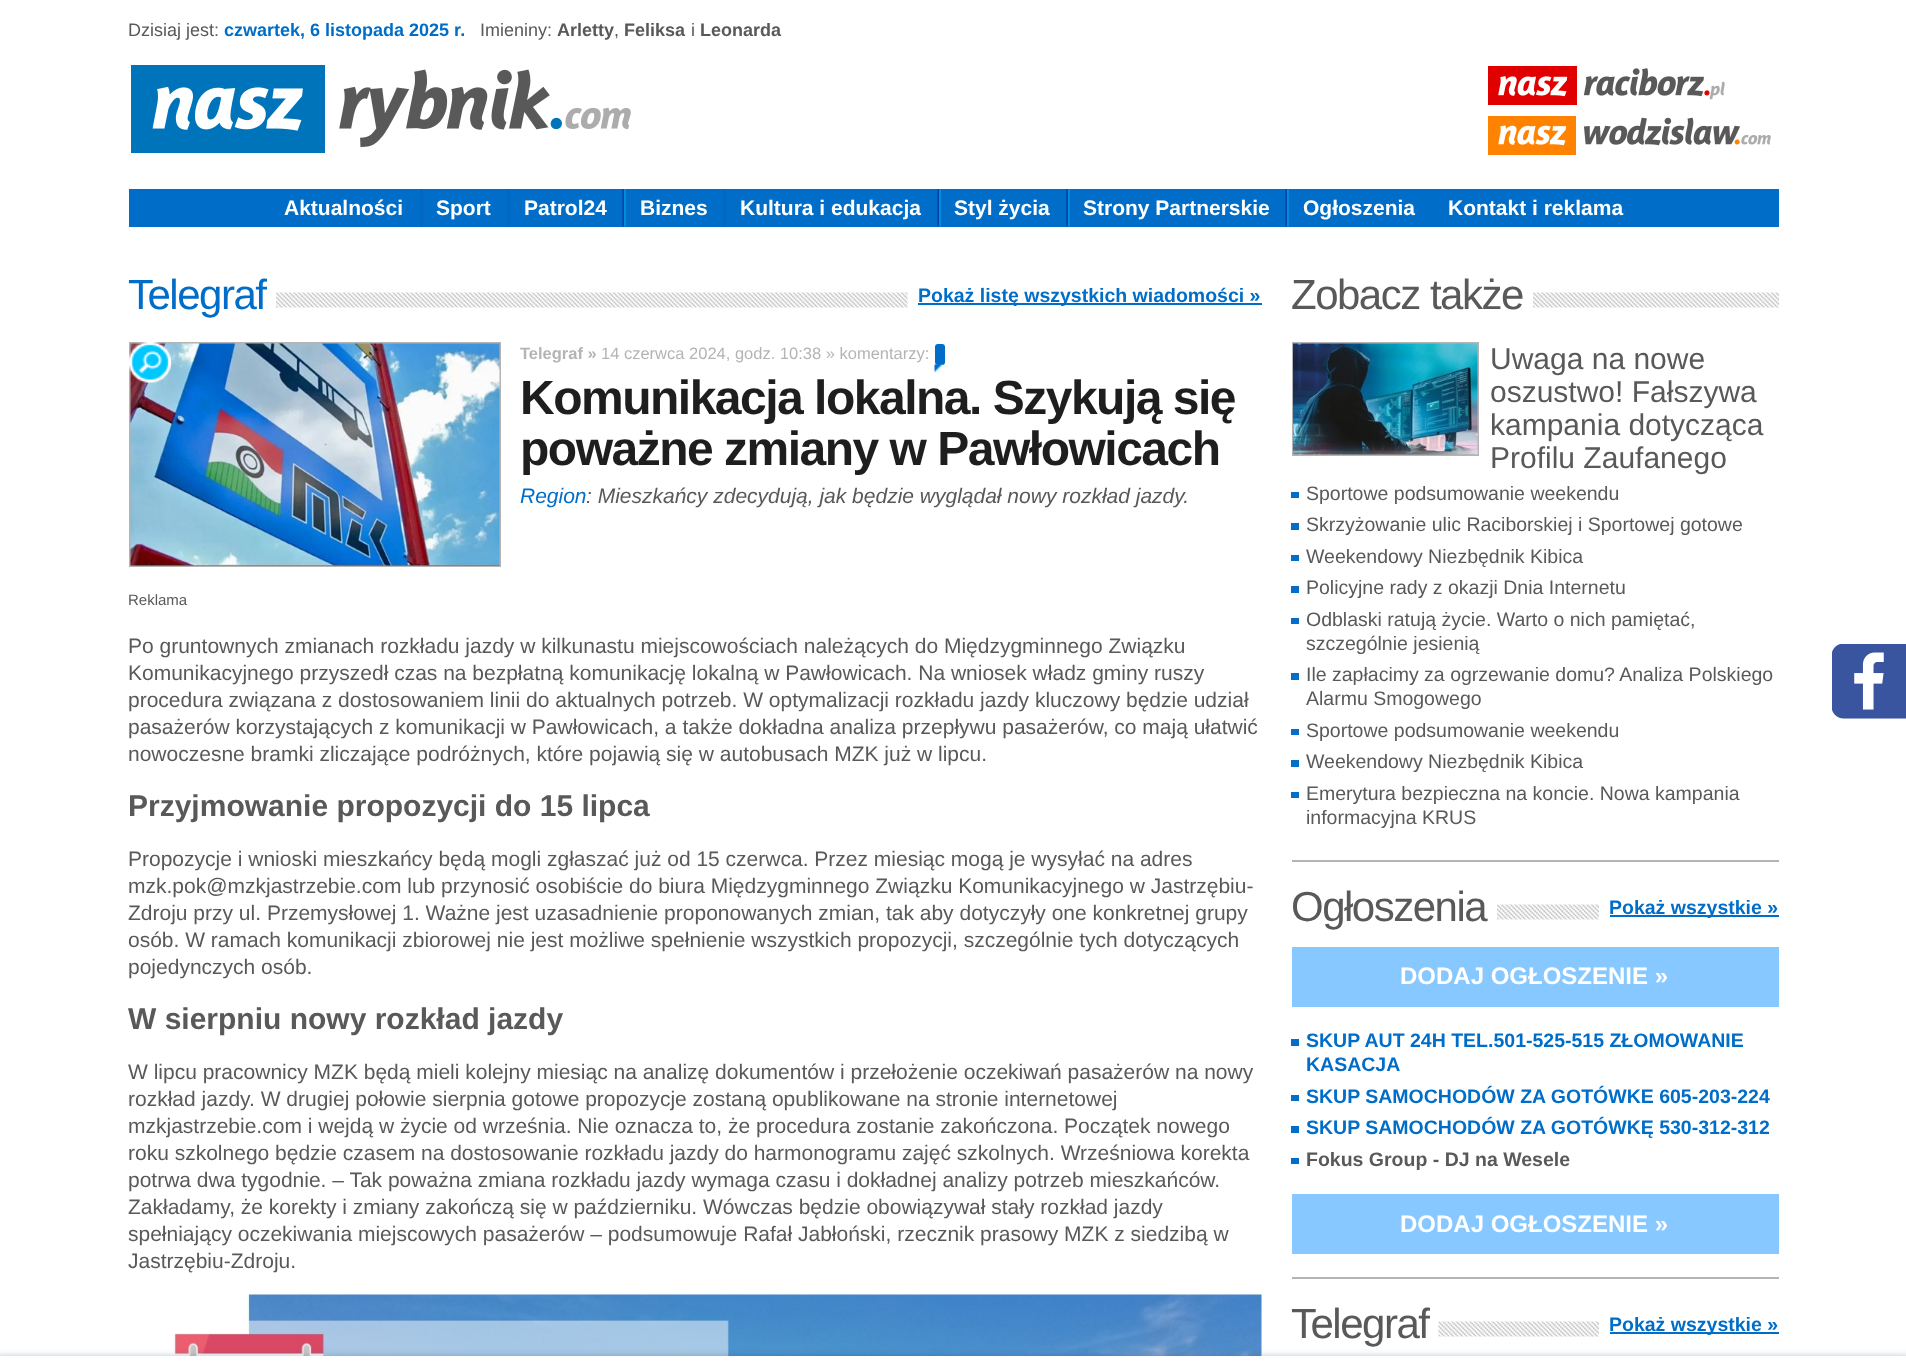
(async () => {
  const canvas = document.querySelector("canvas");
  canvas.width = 1906;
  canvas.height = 1362;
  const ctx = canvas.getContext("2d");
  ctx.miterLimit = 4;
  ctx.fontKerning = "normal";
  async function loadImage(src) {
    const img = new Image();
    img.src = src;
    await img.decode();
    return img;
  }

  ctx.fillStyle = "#ffffff";
  ctx.fillRect(0, 0, 1906, 1362);
  ctx.drawImage(await loadImage("img/1.png"), 131, 65, 500, 88);
  ctx.drawImage(await loadImage("img/2.png"), 1488, 66, 237, 39);
  ctx.drawImage(await loadImage("img/3.png"), 1488, 116, 283, 39);
  for (const [x, y, w, h, color] of [
    [129, 189, 1650, 38, "#006ec8"],
    [420, 189, 3, 38, "#0067c4"],
    [507, 189, 3, 38, "#0067c4"],
  ]) {
    ctx.fillStyle = color;
    ctx.fillRect(x, y, w, h);
  }
  ctx.drawImage(await loadImage("img/4.png"), 622, 189, 4, 38);
  ctx.fillRect(723, 189, 3, 38);
  ctx.drawImage(await loadImage("img/4.png"), 937, 189, 4, 38);
  ctx.drawImage(await loadImage("img/4.png"), 1066, 189, 4, 38);
  ctx.drawImage(await loadImage("img/4.png"), 1285, 189, 4, 38);
  ctx.drawImage(await loadImage("img/5.png"), 276, 292, 632, 16);
  ctx.fillStyle = "#006ec8";
  ctx.fillRect(918, 303, 344, 2);
  ctx.strokeStyle = "#b4b4b4";
  ctx.lineWidth = 2;
  ctx.strokeRect(130, 343, 370, 223);
  ctx.drawImage(await loadImage("img/6.png"), 130, 343, 370, 223);
  ctx.drawImage(await loadImage("img/7.png"), 129, 342, 42, 41);
  ctx.beginPath();
  ctx.roundRect(935, 344, 10, 21, 3);
  ctx.fill();
  ctx.drawImage(await loadImage("img/8.png"), 934, 364, 8, 8);
  ctx.drawImage(await loadImage("img/9.png"), 173, 1294, 1089, 62);
  ctx.fillStyle = "#b4b4b4";
  ctx.fillRect(1292, 860, 487, 2);
  ctx.drawImage(await loadImage("img/10.png"), 1533, 292, 246, 16);
  ctx.strokeRect(1293, 343, 185, 112);
  ctx.drawImage(await loadImage("img/11.png"), 1293, 343, 185, 112);
  for (const [x, y, w, h, color] of [
    [1291, 492, 8, 6, "#016fc8"],
    [1291, 523, 8, 7, "#016fc8"],
    [1291, 555, 8, 6, "#016fc8"],
    [1291, 586, 8, 7, "#016fc8"],
    [1291, 618, 8, 6, "#016fc8"],
    [1291, 673, 8, 7, "#016fc8"],
    [1291, 729, 8, 6, "#016fc8"],
    [1291, 760, 8, 7, "#016fc8"],
    [1291, 792, 8, 6, "#016fc8"],
    [1292, 1277, 487, 2, "#b4b4b4"],
  ]) {
    ctx.fillStyle = color;
    ctx.fillRect(x, y, w, h);
  }
  ctx.drawImage(await loadImage("img/12.png"), 1497, 904, 102, 16);
  for (const [x, y, w, h, color] of [
    [1610, 915, 169, 2, "#006ec8"],
    [1292, 947, 487, 60, "#86c8ff"],
    [1291, 1039, 8, 7, "#016fc8"],
    [1291, 1095, 8, 6, "#016fc8"],
    [1291, 1126, 8, 7, "#016fc8"],
    [1291, 1158, 8, 6, "#016fc8"],
    [1292, 1194, 487, 60, "#86c8ff"],
  ]) {
    ctx.fillStyle = color;
    ctx.fillRect(x, y, w, h);
  }
  ctx.drawImage(await loadImage("img/13.png"), 1438, 1321, 161, 16);
  ctx.fillStyle = "#006ec8";
  ctx.fillRect(1610, 1332, 169, 2);
  ctx.drawImage(await loadImage("img/14.png"), 1832, 644, 74, 75);
  ctx.fillStyle = "rgba(17, 58, 102, 0.45)";
  ctx.filter = "blur(4.5px)";
  ctx.beginPath();
  ctx.rect(-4, 1358, 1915, 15);
  ctx.fill();
  ctx.filter = "none";
  ctx.fillStyle = "#ffffff";
  ctx.fillRect(0, 1356, 1906, 6);
  ctx.font = "18px Liberation Sans";
  ctx.fillStyle = "#595959";
  ctx.fillText("Dzisiaj jest:", 128, 36);
  ctx.font = "bold 18px Liberation Sans";
  ctx.fillStyle = "#006ec8";
  ctx.fillText("czwartek, 6 listopada 2025 r.", 224, 36);
  ctx.font = "18px Liberation Sans";
  ctx.fillStyle = "#595959";
  ctx.fillText("Imieniny:", 480, 36);
  ctx.font = "bold 18px Liberation Sans";
  ctx.fillText("Arletty", 557, 36);
  ctx.font = "18px Liberation Sans";
  ctx.fillText(",", 614, 36);
  ctx.font = "bold 18px Liberation Sans";
  ctx.fillText("Feliksa", 624, 36);
  ctx.font = "18px Liberation Sans";
  ctx.fillText("i", 691, 36);
  ctx.font = "bold 18px Liberation Sans";
  ctx.fillText("Leonarda", 700, 36);
  ctx.font = "bold 21px Liberation Sans";
  ctx.fillStyle = "#ffffff";
  for (const [text, x, y] of [
    ["Aktualności", 284, 215],
    ["Sport", 436, 215],
    ["Patrol24", 524, 215],
    ["Biznes", 640, 215],
    ["Kultura i edukacja", 740, 215],
    ["Styl życia", 954, 215],
    ["Strony Partnerskie", 1083, 215],
    ["Ogłoszenia", 1303, 215],
    ["Kontakt i reklama", 1448, 215],
  ]) {
    ctx.fillText(text, x, y);
  }
  ctx.letterSpacing = "-1.5px";
  ctx.font = "42px Liberation Sans";
  ctx.fillStyle = "#006ec8";
  ctx.fillText("Telegraf", 128, 309);
  ctx.letterSpacing = "0px";
  ctx.font = "bold 19.5px Liberation Sans";
  ctx.fillText("Pokaż listę wszystkich wiadomości »", 918, 302);
  ctx.font = "bold 16.5px Liberation Sans";
  ctx.fillStyle = "#b4b4b4";
  ctx.fillText("Telegraf »", 520, 359);
  ctx.font = "16.5px Liberation Sans";
  ctx.fillText("14 czerwca 2024, godz. 10:38 » komentarzy:", 601, 359);
  ctx.letterSpacing = "-1.5px";
  ctx.font = "bold 48px Liberation Sans";
  ctx.fillStyle = "#1e1e1e";
  ctx.fillText("Komunikacja lokalna. Szykują się", 520, 414);
  ctx.fillText("poważne zmiany w Pawłowicach", 520, 465);
  ctx.letterSpacing = "0px";
  ctx.font = "italic 21px Liberation Sans";
  ctx.fillStyle = "#006ec8";
  ctx.fillText("Region", 520, 503);
  ctx.fillStyle = "#595959";
  ctx.fillText(": Mieszkańcy zdecydują, jak będzie wyglądał nowy rozkład jazdy.", 586, 503);
  ctx.font = "15px Liberation Sans";
  ctx.fillText("Reklama", 128, 605);
  ctx.font = "21px Liberation Sans";
  for (const [text, x, y] of [
    ["Po gruntownych zmianach rozkładu jazdy w kilkunastu miejscowościach należących do Międzygminnego Związku", 128, 653],
    ["Komunikacyjnego przyszedł czas na bezpłatną komunikację lokalną w Pawłowicach. Na wniosek władz gminy ruszy", 128, 680],
    ["procedura związana z dostosowaniem linii do aktualnych potrzeb. W optymalizacji rozkładu jazdy kluczowy będzie udział", 128, 707],
    ["pasażerów korzystających z komunikacji w Pawłowicach, a także dokładna analiza przepływu pasażerów, co mają ułatwić", 128, 734],
    ["nowoczesne bramki zliczające podróżnych, które pojawią się w autobusach MZK już w lipcu.", 128, 761],
  ]) {
    ctx.fillText(text, x, y);
  }
  ctx.font = "bold 30px Liberation Sans";
  ctx.fillText("Przyjmowanie propozycji do 15 lipca", 128, 816);
  ctx.font = "21px Liberation Sans";
  for (const [text, x, y] of [
    ["Propozycje i wnioski mieszkańcy będą mogli zgłaszać już od 15 czerwca. Przez miesiąc mogą je wysyłać na adres", 128, 866],
    ["mzk.pok@mzkjastrzebie.com lub przynosić osobiście do biura Międzygminnego Związku Komunikacyjnego w Jastrzębiu-", 128, 893],
    ["Zdroju przy ul. Przemysłowej 1. Ważne jest uzasadnienie proponowanych zmian, tak aby dotyczyły one konkretnej grupy", 128, 920],
    ["osób. W ramach komunikacji zbiorowej nie jest możliwe spełnienie wszystkich propozycji, szczególnie tych dotyczących", 128, 947],
    ["pojedynczych osób.", 128, 974],
  ]) {
    ctx.fillText(text, x, y);
  }
  ctx.font = "bold 30px Liberation Sans";
  ctx.fillText("W sierpniu nowy rozkład jazdy", 128, 1029);
  ctx.font = "21px Liberation Sans";
  for (const [text, x, y] of [
    ["W lipcu pracownicy MZK będą mieli kolejny miesiąc na analizę dokumentów i przełożenie oczekiwań pasażerów na nowy", 128, 1079],
    ["rozkład jazdy. W drugiej połowie sierpnia gotowe propozycje zostaną opublikowane na stronie internetowej", 128, 1106],
    ["mzkjastrzebie.com i wejdą w życie od września. Nie oznacza to, że procedura zostanie zakończona. Początek nowego", 128, 1133],
    ["roku szkolnego będzie czasem na dostosowanie rozkładu jazdy do harmonogramu zajęć szkolnych. Wrześniowa korekta", 128, 1160],
    ["potrwa dwa tygodnie. – Tak poważna zmiana rozkładu jazdy wymaga czasu i dokładnej analizy potrzeb mieszkańców.", 128, 1187],
    ["Zakładamy, że korekty i zmiany zakończą się w październiku. Wówczas będzie obowiązywał stały rozkład jazdy", 128, 1214],
    ["spełniający oczekiwania miejscowych pasażerów – podsumowuje Rafał Jabłoński, rzecznik prasowy MZK z siedzibą w", 128, 1241],
    ["Jastrzębiu-Zdroju.", 128, 1268],
  ]) {
    ctx.fillText(text, x, y);
  }
  ctx.letterSpacing = "-1.5px";
  ctx.font = "42px Liberation Sans";
  ctx.fillText("Zobacz także", 1291, 309);
  ctx.letterSpacing = "0px";
  ctx.font = "30px Liberation Sans";
  for (const [text, x, y] of [
    ["Uwaga na nowe", 1490, 369],
    ["oszustwo! Fałszywa", 1490, 402],
    ["kampania dotycząca", 1490, 435],
    ["Profilu Zaufanego", 1490, 468],
  ]) {
    ctx.fillText(text, x, y);
  }
  ctx.font = "19.5px Liberation Sans";
  for (const [text, x, y] of [
    ["Sportowe podsumowanie weekendu", 1306, 500],
    ["Skrzyżowanie ulic Raciborskiej i Sportowej gotowe", 1306, 531],
    ["Weekendowy Niezbędnik Kibica", 1306, 563],
    ["Policyjne rady z okazji Dnia Internetu", 1306, 594],
    ["Odblaski ratują życie. Warto o nich pamiętać,", 1306, 626],
    ["szczególnie jesienią", 1306, 650],
    ["Ile zapłacimy za ogrzewanie domu? Analiza Polskiego", 1306, 681],
    ["Alarmu Smogowego", 1306, 705],
    ["Sportowe podsumowanie weekendu", 1306, 737],
    ["Weekendowy Niezbędnik Kibica", 1306, 768],
    ["Emerytura bezpieczna na koncie. Nowa kampania", 1306, 800],
    ["informacyjna KRUS", 1306, 824],
  ]) {
    ctx.fillText(text, x, y);
  }
  ctx.letterSpacing = "-1.5px";
  ctx.font = "42px Liberation Sans";
  ctx.fillText("Ogłoszenia", 1291, 921);
  ctx.letterSpacing = "0px";
  ctx.font = "bold 19.5px Liberation Sans";
  ctx.fillStyle = "#006ec8";
  ctx.fillText("Pokaż wszystkie »", 1609, 914);
  ctx.font = "bold 24px Liberation Sans";
  ctx.fillStyle = "#ffffff";
  ctx.fillText("DODAJ OGŁOSZENIE »", 1400, 984);
  ctx.font = "bold 19.5px Liberation Sans";
  ctx.fillStyle = "#006ec8";
  for (const [text, x, y] of [
    ["SKUP AUT 24H TEL.501-525-515 ZŁOMOWANIE", 1306, 1047],
    ["KASACJA", 1306, 1071],
    ["SKUP SAMOCHODÓW ZA GOTÓWKE 605-203-224", 1306, 1103],
    ["SKUP SAMOCHODÓW ZA GOTÓWKĘ 530-312-312", 1306, 1134],
  ]) {
    ctx.fillText(text, x, y);
  }
  ctx.fillStyle = "#595959";
  ctx.fillText("Fokus Group - DJ na Wesele", 1306, 1166);
  ctx.font = "bold 24px Liberation Sans";
  ctx.fillStyle = "#ffffff";
  ctx.fillText("DODAJ OGŁOSZENIE »", 1400, 1232);
  ctx.letterSpacing = "-1.5px";
  ctx.font = "42px Liberation Sans";
  ctx.fillStyle = "#595959";
  ctx.fillText("Telegraf", 1291, 1338);
  ctx.letterSpacing = "0px";
  ctx.font = "bold 19.5px Liberation Sans";
  ctx.fillStyle = "#006ec8";
  ctx.fillText("Pokaż wszystkie »", 1609, 1331);
})();
